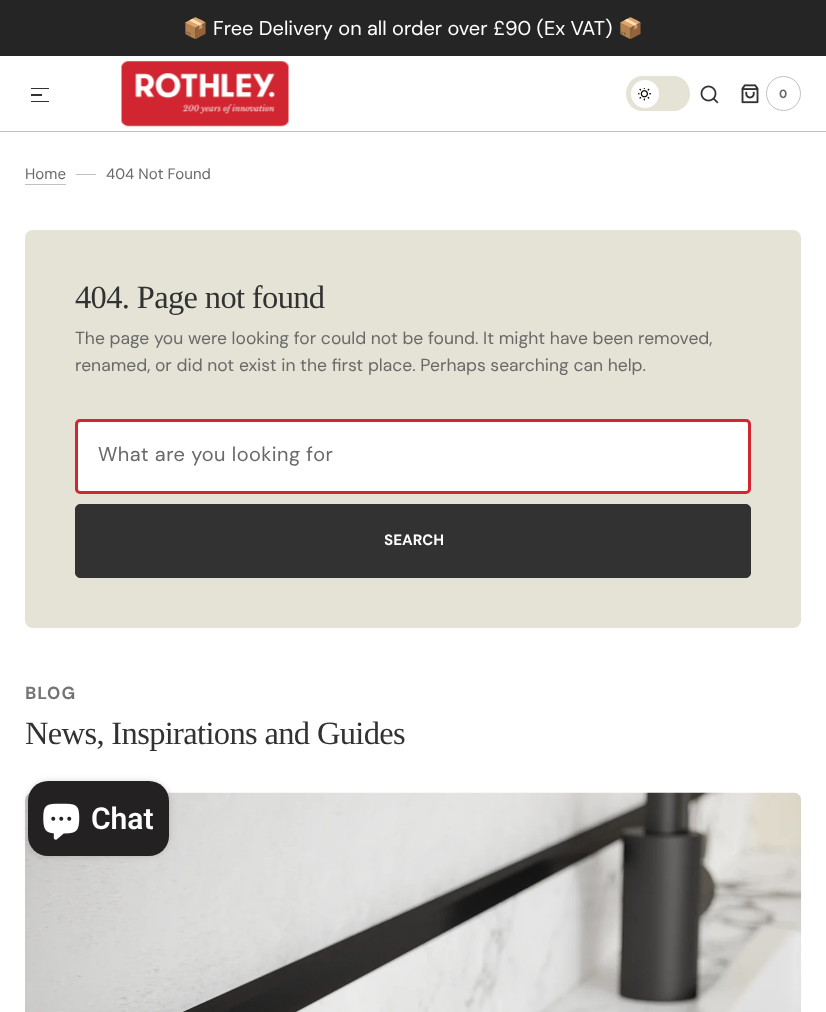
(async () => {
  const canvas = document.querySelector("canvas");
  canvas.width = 826;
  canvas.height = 1012;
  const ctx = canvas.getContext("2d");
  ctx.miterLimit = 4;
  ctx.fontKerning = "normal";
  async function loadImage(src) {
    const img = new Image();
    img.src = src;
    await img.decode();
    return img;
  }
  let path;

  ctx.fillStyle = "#ffffff";
  ctx.fillRect(0, 0, 826, 1012);
  for (const [x, y, w, h, color] of [
    [0, 0, 826, 56, "#252525"],
    [31, 88, 18, 1, "#323232"],
    [31, 94, 11, 2, "#323232"],
    [31, 101, 18, 1, "#323232"],
  ]) {
    ctx.fillStyle = color;
    ctx.fillRect(x, y, w, h);
  }
  ctx.drawImage(await loadImage("img/1.png"), 121, 61, 168, 66);
  ctx.fillStyle = "#e4e3d6";
  path = new Path2D("M642 76H674C683 76 690 84 690 94C690 103 683 111 674 111H642C633 111 626 103 626 94C626 84 633 76 642 76Z");
  ctx.fill(path);
  ctx.fillStyle = "#ffffff";
  ctx.beginPath();
  ctx.arc(645, 94, 14, 0, Math.PI * 2);
  ctx.fill();
  ctx.drawImage(await loadImage("img/2.png"), 638, 88, 13, 13);
  ctx.drawImage(await loadImage("img/3.png"), 700, 85, 19, 19);
  ctx.drawImage(await loadImage("img/4.png"), 741, 84, 18, 20);
  ctx.beginPath();
  ctx.arc(783.5, 93.5, 17, 0, Math.PI * 2);
  ctx.strokeStyle = "#c1c1c1";
  ctx.stroke();
  for (const [x, y, w, h, color] of [
    [0, 131, 826, 1, "#c1c1c1"],
    [25, 184, 41, 1, "#c1c1c1"],
    [76, 174, 20, 1, "#c1c1c1"],
  ]) {
    ctx.fillStyle = color;
    ctx.fillRect(x, y, w, h);
  }
  ctx.fillStyle = "#e4e3d6";
  ctx.beginPath();
  ctx.roundRect(25, 230, 776, 398, 8);
  ctx.fill();
  ctx.fillStyle = "#ffffff";
  ctx.beginPath();
  ctx.roundRect(76.5, 420.5, 673, 72, 3.5);
  ctx.fill();
  ctx.strokeStyle = "#d22630";
  ctx.lineWidth = 3;
  ctx.stroke();
  ctx.fillStyle = "#323232";
  ctx.beginPath();
  ctx.roundRect(75.5, 504.5, 675, 73, 4.5);
  ctx.fill();
  ctx.strokeStyle = "#323232";
  ctx.lineWidth = 1;
  ctx.stroke();
  ctx.drawImage(await loadImage("img/5.png"), 25, 792, 777, 220);
  ctx.fillStyle = "rgba(0, 0, 0, 0.15)";
  ctx.filter = "blur(3px)";
  ctx.beginPath();
  ctx.roundRect(28, 781, 141, 75, 20);
  ctx.fill();
  ctx.filter = "none";
  ctx.fillStyle = "#232121";
  ctx.beginPath();
  ctx.roundRect(28, 781, 141, 75, 20);
  ctx.fill();
  ctx.drawImage(await loadImage("img/6.png"), 43, 803, 37, 37);
  ctx.font = "20px Noto Color Emoji";
  ctx.fillStyle = "#ffffff";
  ctx.fillText("📦", 183, 35);
  ctx.font = "20px DM Sans";
  ctx.fillText("Free Delivery on all order over £90 (Ex VAT)", 213, 35);
  ctx.font = "20px Noto Color Emoji";
  ctx.fillText("📦", 618, 35);
  ctx.font = "bold 12px 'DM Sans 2'";
  ctx.fillStyle = "#696969";
  ctx.fillText("0", 779, 98);
  ctx.font = "15px 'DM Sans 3'";
  ctx.fillText("Home", 25, 179);
  ctx.fillText("404 Not Found", 106, 179);
  ctx.letterSpacing = "-0.65px";
  ctx.font = "32.5px Liberation Serif";
  ctx.fillStyle = "#323232";
  ctx.fillText("404. Page not found", 75, 308);
  ctx.letterSpacing = "0px";
  ctx.font = "17.5px 'DM Sans 2'";
  ctx.fillStyle = "#696969";
  ctx.fillText("The page you were looking for could not be found. It might have been removed,", 75, 344);
  ctx.fillText("renamed, or did not exist in the first place. Perhaps searching can help.", 75, 371);
  ctx.letterSpacing = "0.45px";
  ctx.font = "20px DM Sans";
  ctx.fillText("What are you looking for", 98, 461);
  ctx.letterSpacing = "0px";
  ctx.font = "bold 15px DM Sans";
  ctx.fillStyle = "#ffffff";
  ctx.fillText("SEARCH", 384, 545);
  ctx.letterSpacing = "1px";
  ctx.font = "bold 17.5px DM Sans";
  ctx.fillStyle = "#747474";
  ctx.fillText("BLOG", 25, 699);
  ctx.letterSpacing = "-0.65px";
  ctx.font = "32.5px Liberation Serif";
  ctx.fillStyle = "#323232";
  ctx.fillText("News, Inspirations and Guides", 25, 744);
  ctx.letterSpacing = "0px";
  ctx.font = "600 30px Roboto";
  ctx.fillStyle = "#ffffff";
  ctx.fillText("Chat", 91, 829);
})();
